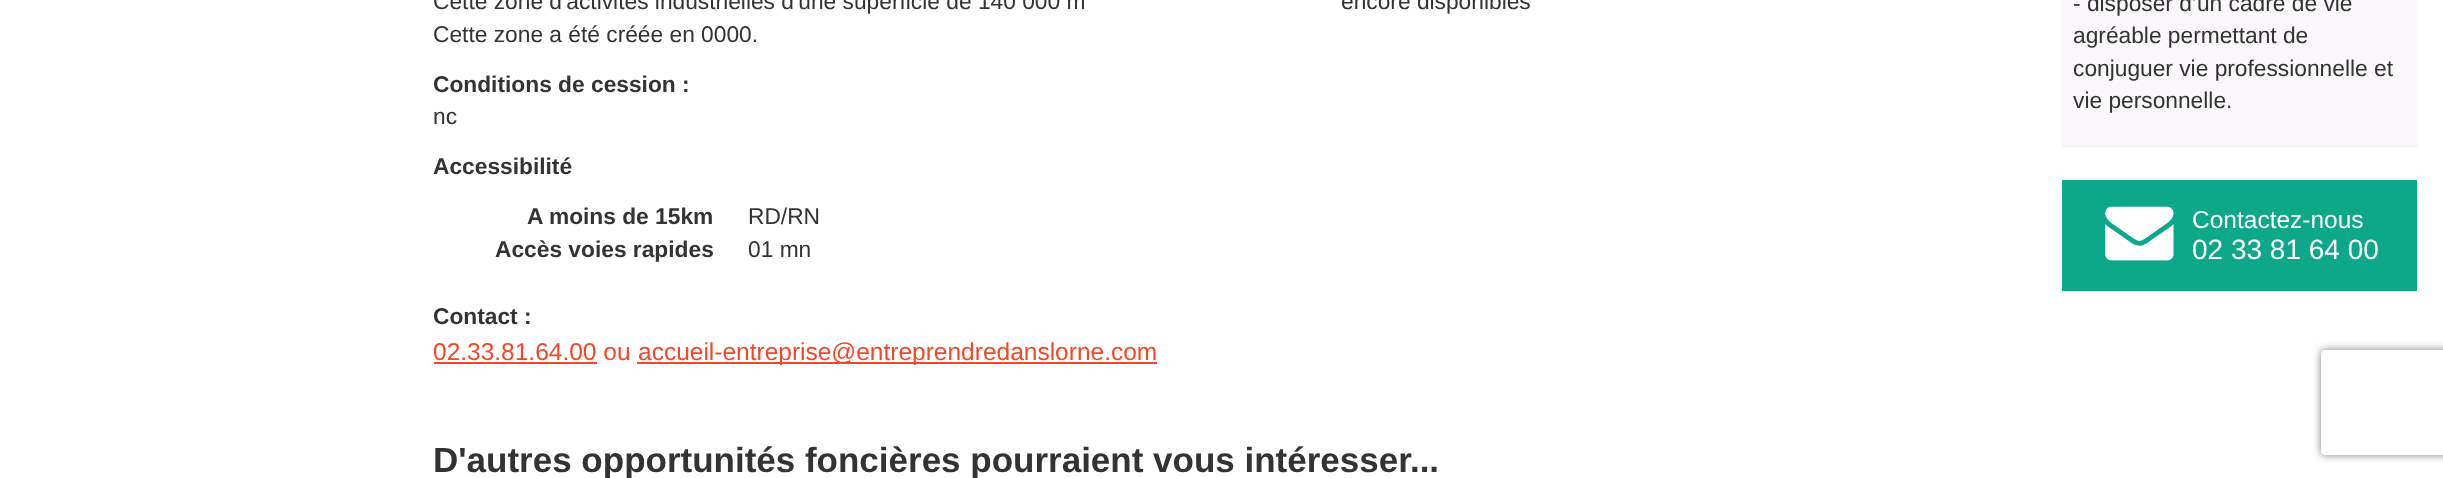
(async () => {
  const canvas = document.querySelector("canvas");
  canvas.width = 2443;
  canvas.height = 478;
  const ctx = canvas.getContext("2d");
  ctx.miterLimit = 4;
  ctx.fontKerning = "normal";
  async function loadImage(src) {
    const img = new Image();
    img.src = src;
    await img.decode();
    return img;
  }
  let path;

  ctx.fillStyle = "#ffffff";
  ctx.fillRect(0, 0, 2443, 478);
  ctx.fillStyle = "#f14827";
  ctx.fillRect(434, 362, 163, 2);
  ctx.fillRect(637, 362, 520, 2);
  ctx.fillStyle = "rgba(0, 0, 0, 0.05)";
  ctx.filter = "blur(1px)";
  ctx.beginPath();
  ctx.rect(2062, -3, 355, 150);
  ctx.fill();
  ctx.filter = "none";
  ctx.fillStyle = "#f9f7f9";
  ctx.fillRect(2062, 0, 355, 145);
  ctx.fillStyle = "#0da789";
  ctx.fillRect(2062, 180, 355, 111);
  ctx.drawImage(await loadImage("img/1.png"), 2105, 206, 69, 55);
  ctx.save();
  path = new Path2D("M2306 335H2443V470H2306ZM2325 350H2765C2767 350 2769 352 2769 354V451C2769 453 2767 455 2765 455H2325C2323 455 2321 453 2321 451V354C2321 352 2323 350 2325 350Z");
  ctx.clip(path, "evenodd");
  ctx.fillStyle = "#808080";
  ctx.filter = "blur(4.5px)";
  ctx.beginPath();
  ctx.roundRect(2321, 350, 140, 105, 4);
  ctx.fill();
  ctx.filter = "none";
  ctx.restore();
  ctx.font = "22.75px Liberation Sans";
  ctx.fillStyle = "#333333";
  for (const [text, x, y] of [
    ["Cette zone d'activités industrielles d'une superficie de 140 000 m", 433, 9],
    ["encore disponibles", 1341, 9],
    ["Cette zone a été créée en 0000.", 433, 42],
  ]) {
    ctx.fillText(text, x, y);
  }
  ctx.font = "bold 22.75px Liberation Sans";
  ctx.fillText("Conditions de cession :", 433, 92);
  ctx.font = "22.75px Liberation Sans";
  ctx.fillText("nc", 433, 124);
  ctx.font = "bold 22.75px Liberation Sans";
  ctx.fillText("Accessibilité", 433, 174);
  ctx.fillText("A moins de 15km", 527, 224);
  ctx.font = "22.75px Liberation Sans";
  ctx.fillText("RD/RN", 748, 224);
  ctx.font = "bold 22.75px Liberation Sans";
  ctx.fillText("Accès voies rapides", 495, 257);
  ctx.font = "22.75px Liberation Sans";
  ctx.fillText("01 mn", 748, 257);
  ctx.font = "bold 22.75px Liberation Sans";
  ctx.fillText("Contact :", 433, 324);
  ctx.font = "24.5px Liberation Sans";
  ctx.fillStyle = "#f14827";
  ctx.fillText("02.33.81.64.00 ou", 433, 360);
  ctx.fillText("accueil-entreprise@entreprendredanslorne.com", 638, 360);
  ctx.font = "bold 35px Liberation Sans";
  ctx.fillStyle = "#333333";
  ctx.fillText("D'autres opportunités foncières pourraient vous intéresser...", 433, 472);
  ctx.font = "22.75px Liberation Sans";
  for (const [text, x, y] of [
    ["- disposer d’un cadre de vie", 2073, 11],
    ["agréable permettant de", 2073, 43],
    ["conjuguer vie professionnelle et", 2073, 76],
    ["vie personnelle.", 2073, 108],
  ]) {
    ctx.fillText(text, x, y);
  }
  ctx.font = "24.5px Liberation Sans";
  ctx.fillStyle = "#ffffff";
  ctx.fillText("Contactez-nous", 2192, 228);
  ctx.font = "28px Liberation Sans";
  ctx.fillText("02 33 81 64 00", 2192, 259);
})();
